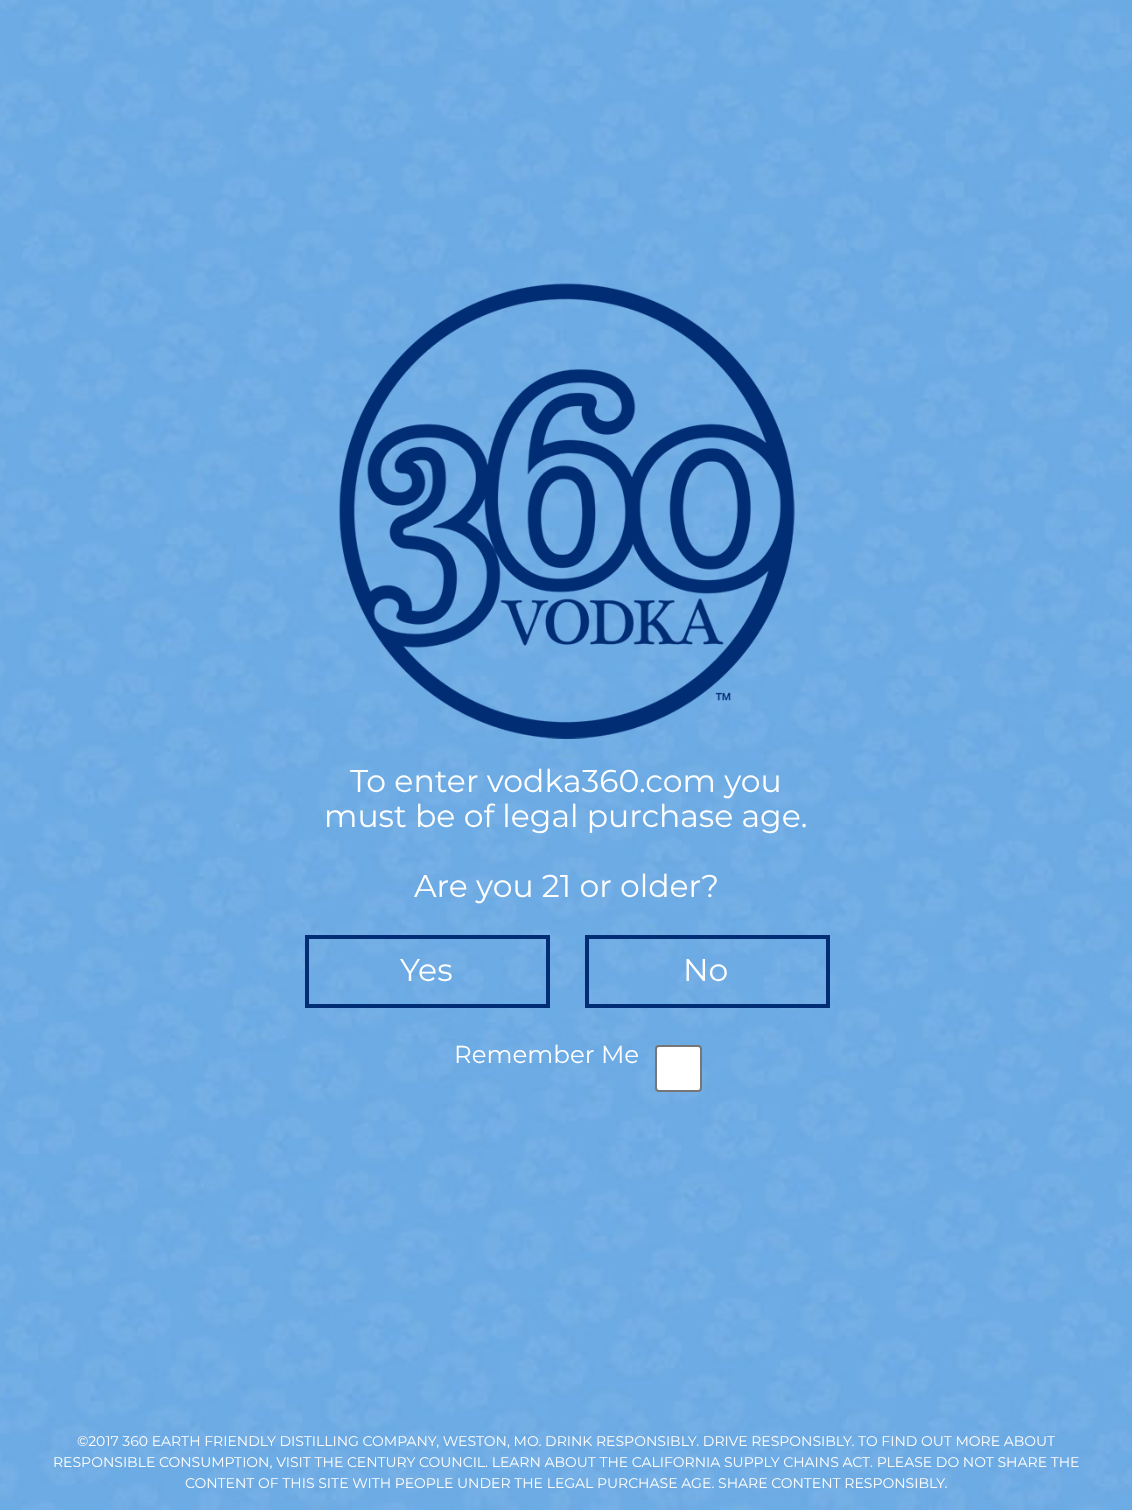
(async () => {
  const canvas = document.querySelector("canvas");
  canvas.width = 1132;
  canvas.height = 1510;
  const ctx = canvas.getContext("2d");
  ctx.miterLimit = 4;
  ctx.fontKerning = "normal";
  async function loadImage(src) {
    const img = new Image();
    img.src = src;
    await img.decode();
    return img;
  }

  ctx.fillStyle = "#ffffff";
  ctx.fillRect(0, 0, 1132, 1510);
  ctx.drawImage(await loadImage("img/1.png"), 0, 0, 1132, 1510);
  ctx.drawImage(await loadImage("img/2.png"), 339, 283, 456, 456);
  ctx.strokeStyle = "#002d74";
  ctx.lineWidth = 4;
  ctx.strokeRect(307, 937, 241, 69);
  ctx.strokeRect(587, 937, 241, 69);
  ctx.beginPath();
  ctx.roundRect(656, 1046, 45, 45, 3);
  ctx.fill();
  ctx.strokeStyle = "#767676";
  ctx.lineWidth = 2;
  ctx.stroke();
  ctx.font = "31.5px Montserrat";
  for (const [text, x, y] of [
    ["To enter vodka360.com you", 350, 792],
    ["must be of legal purchase age.", 324, 827],
    ["Are you 21 or older?", 414, 897],
    ["Yes", 400, 981],
    ["No", 683, 981],
  ]) {
    ctx.fillText(text, x, y);
  }
  ctx.font = "24.5px Montserrat";
  ctx.fillText("Remember Me", 454, 1063);
  ctx.font = "14px Montserrat";
  for (const [text, x, y] of [
    ["©2017 360 EARTH FRIENDLY DISTILLING COMPANY, WESTON, MO. DRINK RESPONSIBLY. DRIVE RESPONSIBLY. TO FIND OUT MORE ABOUT", 77, 1446],
    ["RESPONSIBLE CONSUMPTION, VISIT THE CENTURY COUNCIL", 53, 1467],
    [". LEARN ABOUT THE CALIFORNIA SUPPLY CHAINS ACT", 485, 1467],
    [". PLEASE DO NOT SHARE THE", 870, 1467],
    ["CONTENT OF THIS SITE WITH PEOPLE UNDER THE LEGAL PURCHASE AGE. SHARE CONTENT RESPONSIBLY.", 185, 1488],
  ]) {
    ctx.fillText(text, x, y);
  }
})();
